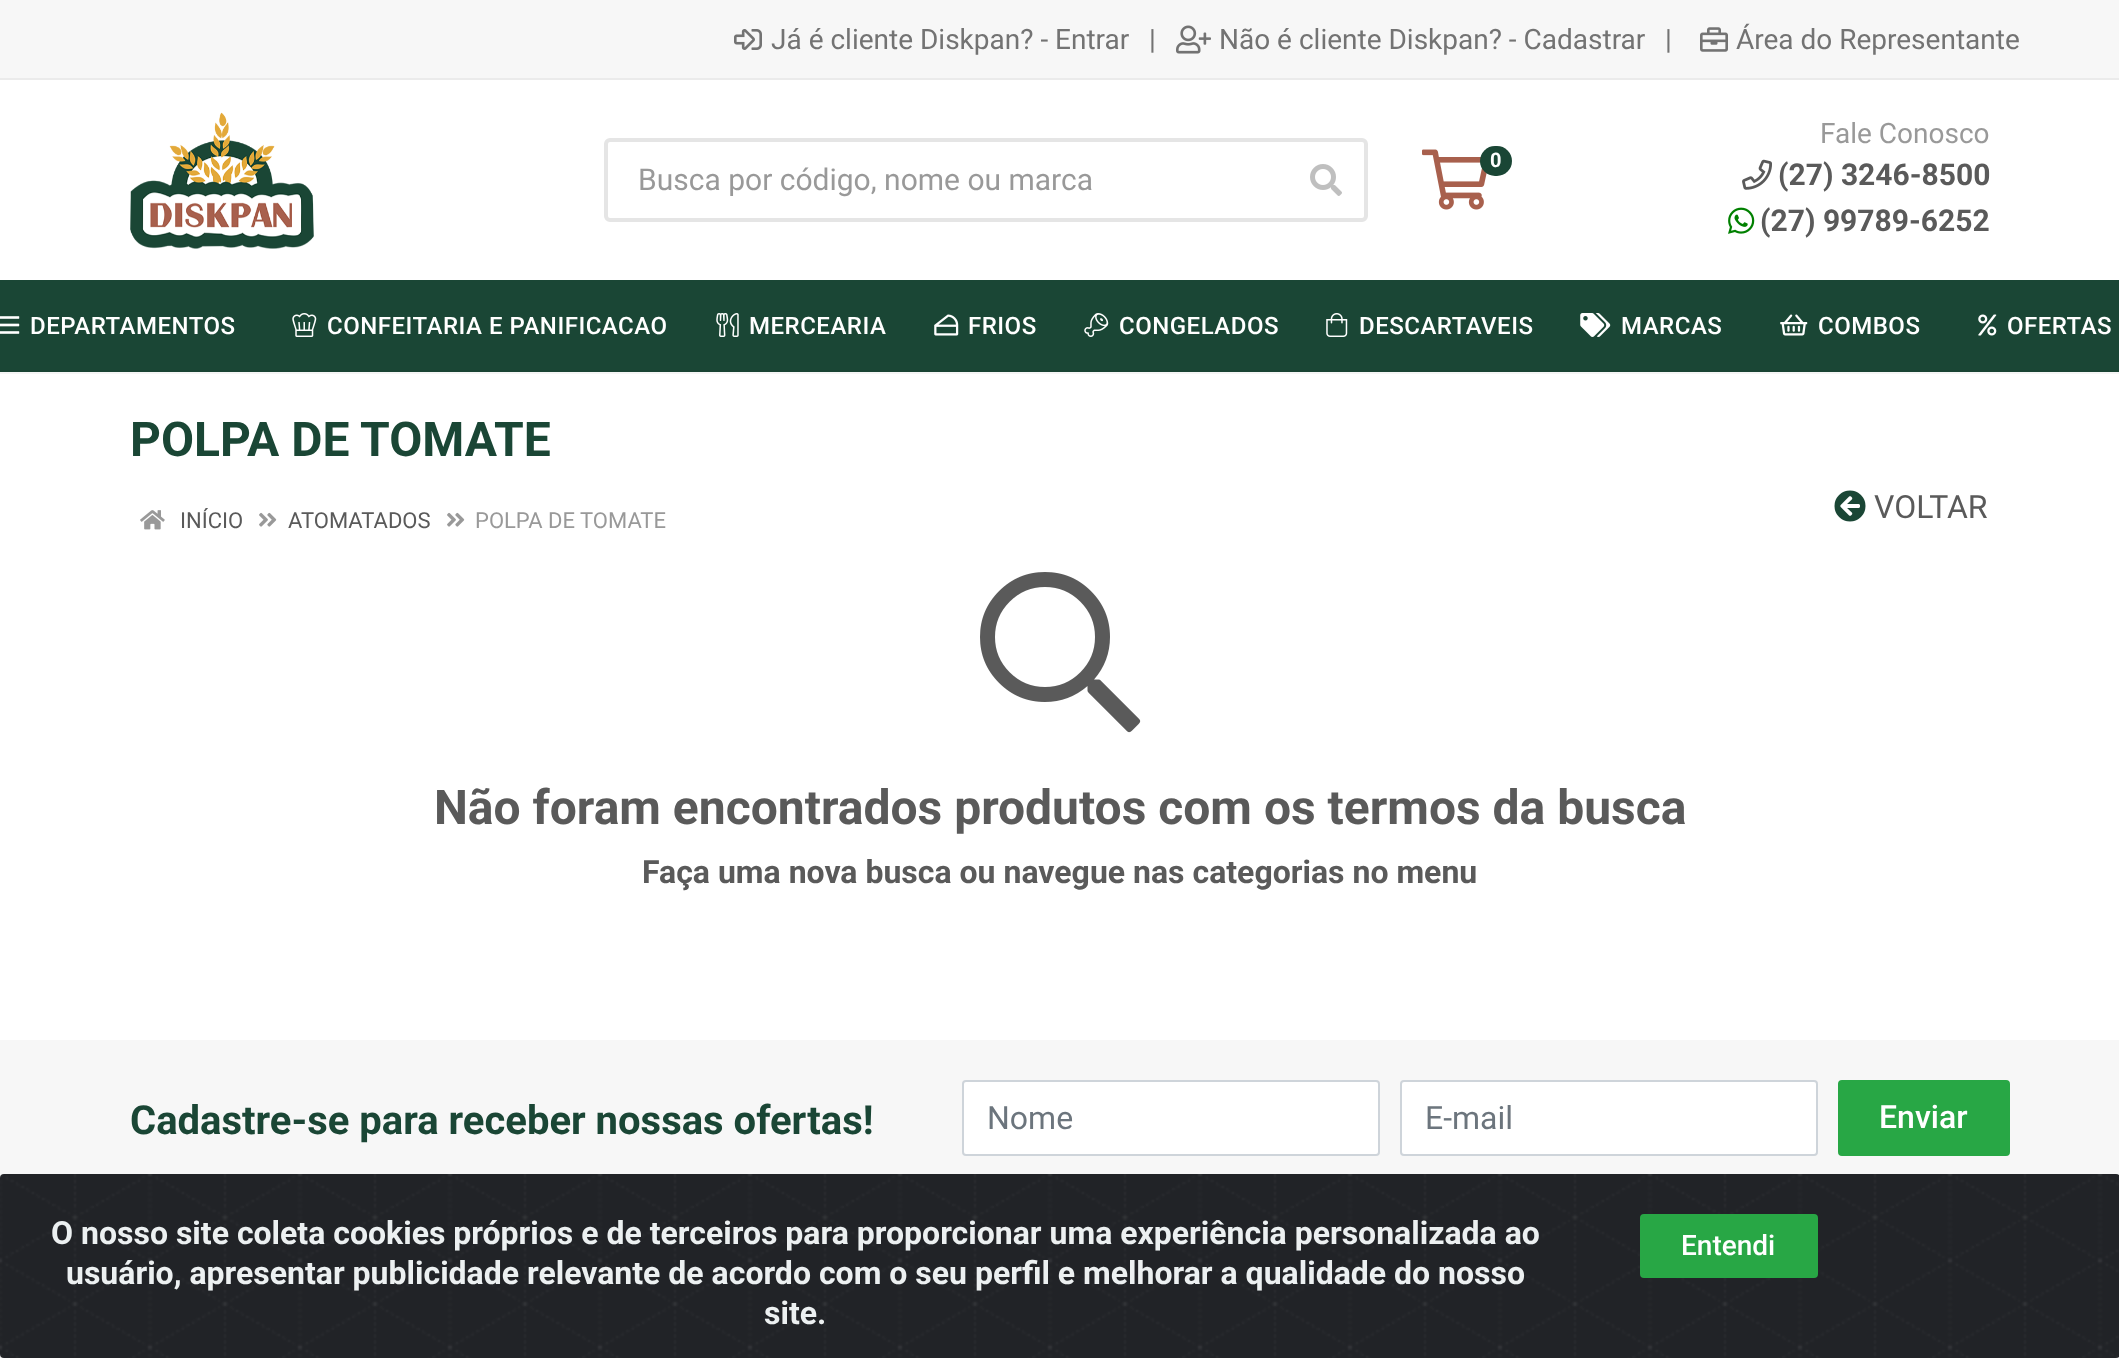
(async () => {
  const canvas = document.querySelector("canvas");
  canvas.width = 2119;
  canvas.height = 1358;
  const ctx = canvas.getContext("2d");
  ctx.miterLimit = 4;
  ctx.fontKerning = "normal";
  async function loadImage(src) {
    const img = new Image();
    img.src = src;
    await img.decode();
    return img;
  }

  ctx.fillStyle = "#ffffff";
  ctx.fillRect(0, 0, 2119, 1358);
  ctx.fillStyle = "#f7f7f7";
  ctx.fillRect(0, 0, 2119, 78);
  ctx.fillStyle = "#ebebeb";
  ctx.fillRect(0, 78, 2119, 2);
  ctx.drawImage(await loadImage("img/1.png"), 734, 29, 28, 21);
  ctx.drawImage(await loadImage("img/2.png"), 1176, 25, 35, 29);
  ctx.drawImage(await loadImage("img/3.png"), 1700, 27, 28, 25);
  ctx.drawImage(await loadImage("img/4.png"), 130, 112, 184, 137);
  ctx.drawImage(await loadImage("img/5.png"), 1422, 149, 65, 61);
  ctx.fillStyle = "#1a4635";
  ctx.beginPath();
  ctx.roundRect(1480, 146, 32, 30, 15);
  ctx.fill();
  ctx.drawImage(await loadImage("img/6.png"), 1742, 159, 30, 31);
  ctx.drawImage(await loadImage("img/7.png"), 1728, 207, 27, 27);
  ctx.beginPath();
  ctx.roundRect(606, 140, 760, 80, 4);
  ctx.strokeStyle = "#e5e5e5";
  ctx.lineWidth = 4;
  ctx.stroke();
  ctx.drawImage(await loadImage("img/8.png"), 1310, 164, 32, 32);
  for (const [x, y, w, h, color] of [
    [0, 372, 2119, 2, "#f5f5f5"],
    [0, 280, 2119, 90, "#1a4635"],
    [0, 370, 2119, 2, "#194333"],
  ]) {
    ctx.fillStyle = color;
    ctx.fillRect(x, y, w, h);
  }
  ctx.drawImage(await loadImage("img/9.png"), 0, 316, 20, 18);
  ctx.drawImage(await loadImage("img/10.png"), 292, 313, 25, 24);
  ctx.drawImage(await loadImage("img/11.png"), 716, 313, 23, 24);
  ctx.drawImage(await loadImage("img/12.png"), 934, 314, 25, 22);
  ctx.drawImage(await loadImage("img/13.png"), 1084, 313, 25, 24);
  ctx.drawImage(await loadImage("img/14.png"), 1326, 313, 22, 24);
  ctx.drawImage(await loadImage("img/15.png"), 1580, 313, 31, 24);
  ctx.drawImage(await loadImage("img/16.png"), 1780, 314, 28, 22);
  ctx.drawImage(await loadImage("img/17.png"), 1978, 314, 19, 22);
  ctx.drawImage(await loadImage("img/18.png"), 140, 510, 25, 20);
  ctx.drawImage(await loadImage("img/19.png"), 259, 512, 18, 15);
  ctx.drawImage(await loadImage("img/19.png"), 447, 512, 18, 15);
  ctx.drawImage(await loadImage("img/20.png"), 1834, 490, 32, 32);
  ctx.drawImage(await loadImage("img/21.png"), 980, 572, 161, 161);
  ctx.fillStyle = "#f7f7f7";
  ctx.fillRect(0, 1040, 2119, 138);
  ctx.fillStyle = "#ffffff";
  ctx.beginPath();
  ctx.roundRect(963, 1081, 416, 74, 3);
  ctx.fill();
  ctx.strokeStyle = "#ced4da";
  ctx.lineWidth = 2;
  ctx.stroke();
  ctx.beginPath();
  ctx.roundRect(1401, 1081, 416, 74, 3);
  ctx.fill();
  ctx.stroke();
  ctx.fillStyle = "#28a745";
  ctx.beginPath();
  ctx.roundRect(1839, 1081, 170, 74, 3);
  ctx.fill();
  ctx.strokeStyle = "#28a745";
  ctx.stroke();
  ctx.fillStyle = "#ebebeb";
  ctx.fillRect(0, 1354, 2119, 4);
  ctx.drawImage(await loadImage("img/22.png"), 0, 1174, 2119, 184);
  ctx.fillStyle = "#28a745";
  ctx.beginPath();
  ctx.roundRect(1641, 1215, 176, 62, 3);
  ctx.fill();
  ctx.stroke();
  ctx.font = "28px Roboto";
  ctx.fillStyle = "#737373";
  for (const [text, x, y] of [
    ["Já é cliente Diskpan? - Entrar", 771, 49],
    ["|", 1149, 49],
    ["Não é cliente Diskpan? - Cadastrar", 1219, 49],
    ["|", 1665, 49],
    ["Área do Representante", 1736, 49],
  ]) {
    ctx.fillText(text, x, y);
  }
  ctx.font = "bold 20px Roboto";
  ctx.fillStyle = "#ffffff";
  ctx.fillText("0", 1490, 167);
  ctx.font = "28px Roboto";
  ctx.fillStyle = "#999999";
  ctx.fillText("Fale Conosco", 1820, 143);
  ctx.font = "bold 30px Roboto";
  ctx.fillStyle = "#5a5a5a";
  ctx.fillText("(27) 3246-8500", 1778, 185);
  ctx.fillText("(27) 99789-6252", 1760, 231);
  ctx.font = "30px Roboto";
  ctx.fillStyle = "#999999";
  ctx.fillText("Busca por código, nome ou marca", 638, 190);
  ctx.letterSpacing = "0.5px";
  ctx.font = "500 24px Roboto";
  ctx.fillStyle = "#ffffff";
  for (const [text, x, y] of [
    ["DEPARTAMENTOS", 30, 334],
    ["CONFEITARIA E PANIFICACAO", 327, 334],
    ["MERCEARIA", 749, 334],
    ["FRIOS", 968, 334],
    ["CONGELADOS", 1119, 334],
    ["DESCARTAVEIS", 1359, 334],
    ["MARCAS", 1621, 334],
    ["COMBOS", 1818, 334],
    ["OFERTAS", 2007, 334],
  ]) {
    ctx.fillText(text, x, y);
  }
  ctx.letterSpacing = "0px";
  ctx.font = "bold 48px Roboto";
  ctx.fillStyle = "#1a4635";
  ctx.fillText("POLPA DE TOMATE", 130, 456);
  ctx.font = "22px Roboto";
  ctx.fillStyle = "#5a5a5a";
  ctx.fillText("INÍCIO", 180, 528);
  ctx.fillText("ATOMATADOS", 288, 528);
  ctx.fillStyle = "#999999";
  ctx.fillText("POLPA DE TOMATE", 475, 528);
  ctx.font = "32px Roboto";
  ctx.fillStyle = "#5a5a5a";
  ctx.fillText("VOLTAR", 1874, 518);
  ctx.font = "bold 48px Roboto";
  ctx.fillText("Não foram encontrados produtos com os termos da busca", 434, 824);
  ctx.font = "bold 32px Roboto";
  ctx.fillText("Faça uma nova busca ou navegue nas categorias no menu", 642, 883);
  ctx.font = "bold 40px Roboto";
  ctx.fillStyle = "#1a4635";
  ctx.fillText("Cadastre-se para receber nossas ofertas!", 130, 1134);
  ctx.font = "32px Roboto";
  ctx.fillStyle = "#6c757d";
  ctx.fillText("Nome", 987, 1129);
  ctx.fillText("E-mail", 1425, 1129);
  ctx.font = "500 32px Roboto";
  ctx.fillStyle = "#ffffff";
  ctx.fillText("Enviar", 1879, 1128);
  ctx.font = "bold 32px Roboto";
  ctx.fillStyle = "#ecf0f1";
  for (const [text, x, y] of [
    ["O nosso site coleta cookies próprios e de terceiros para proporcionar uma experiência personalizada ao", 51, 1244],
    ["usuário, apresentar publicidade relevante de acordo com o seu perfil e melhorar a qualidade do nosso", 66, 1284],
    ["site.", 764, 1324],
  ]) {
    ctx.fillText(text, x, y);
  }
  ctx.font = "500 28px Roboto";
  ctx.fillStyle = "#ffffff";
  ctx.fillText("Entendi", 1681, 1255);
})();
